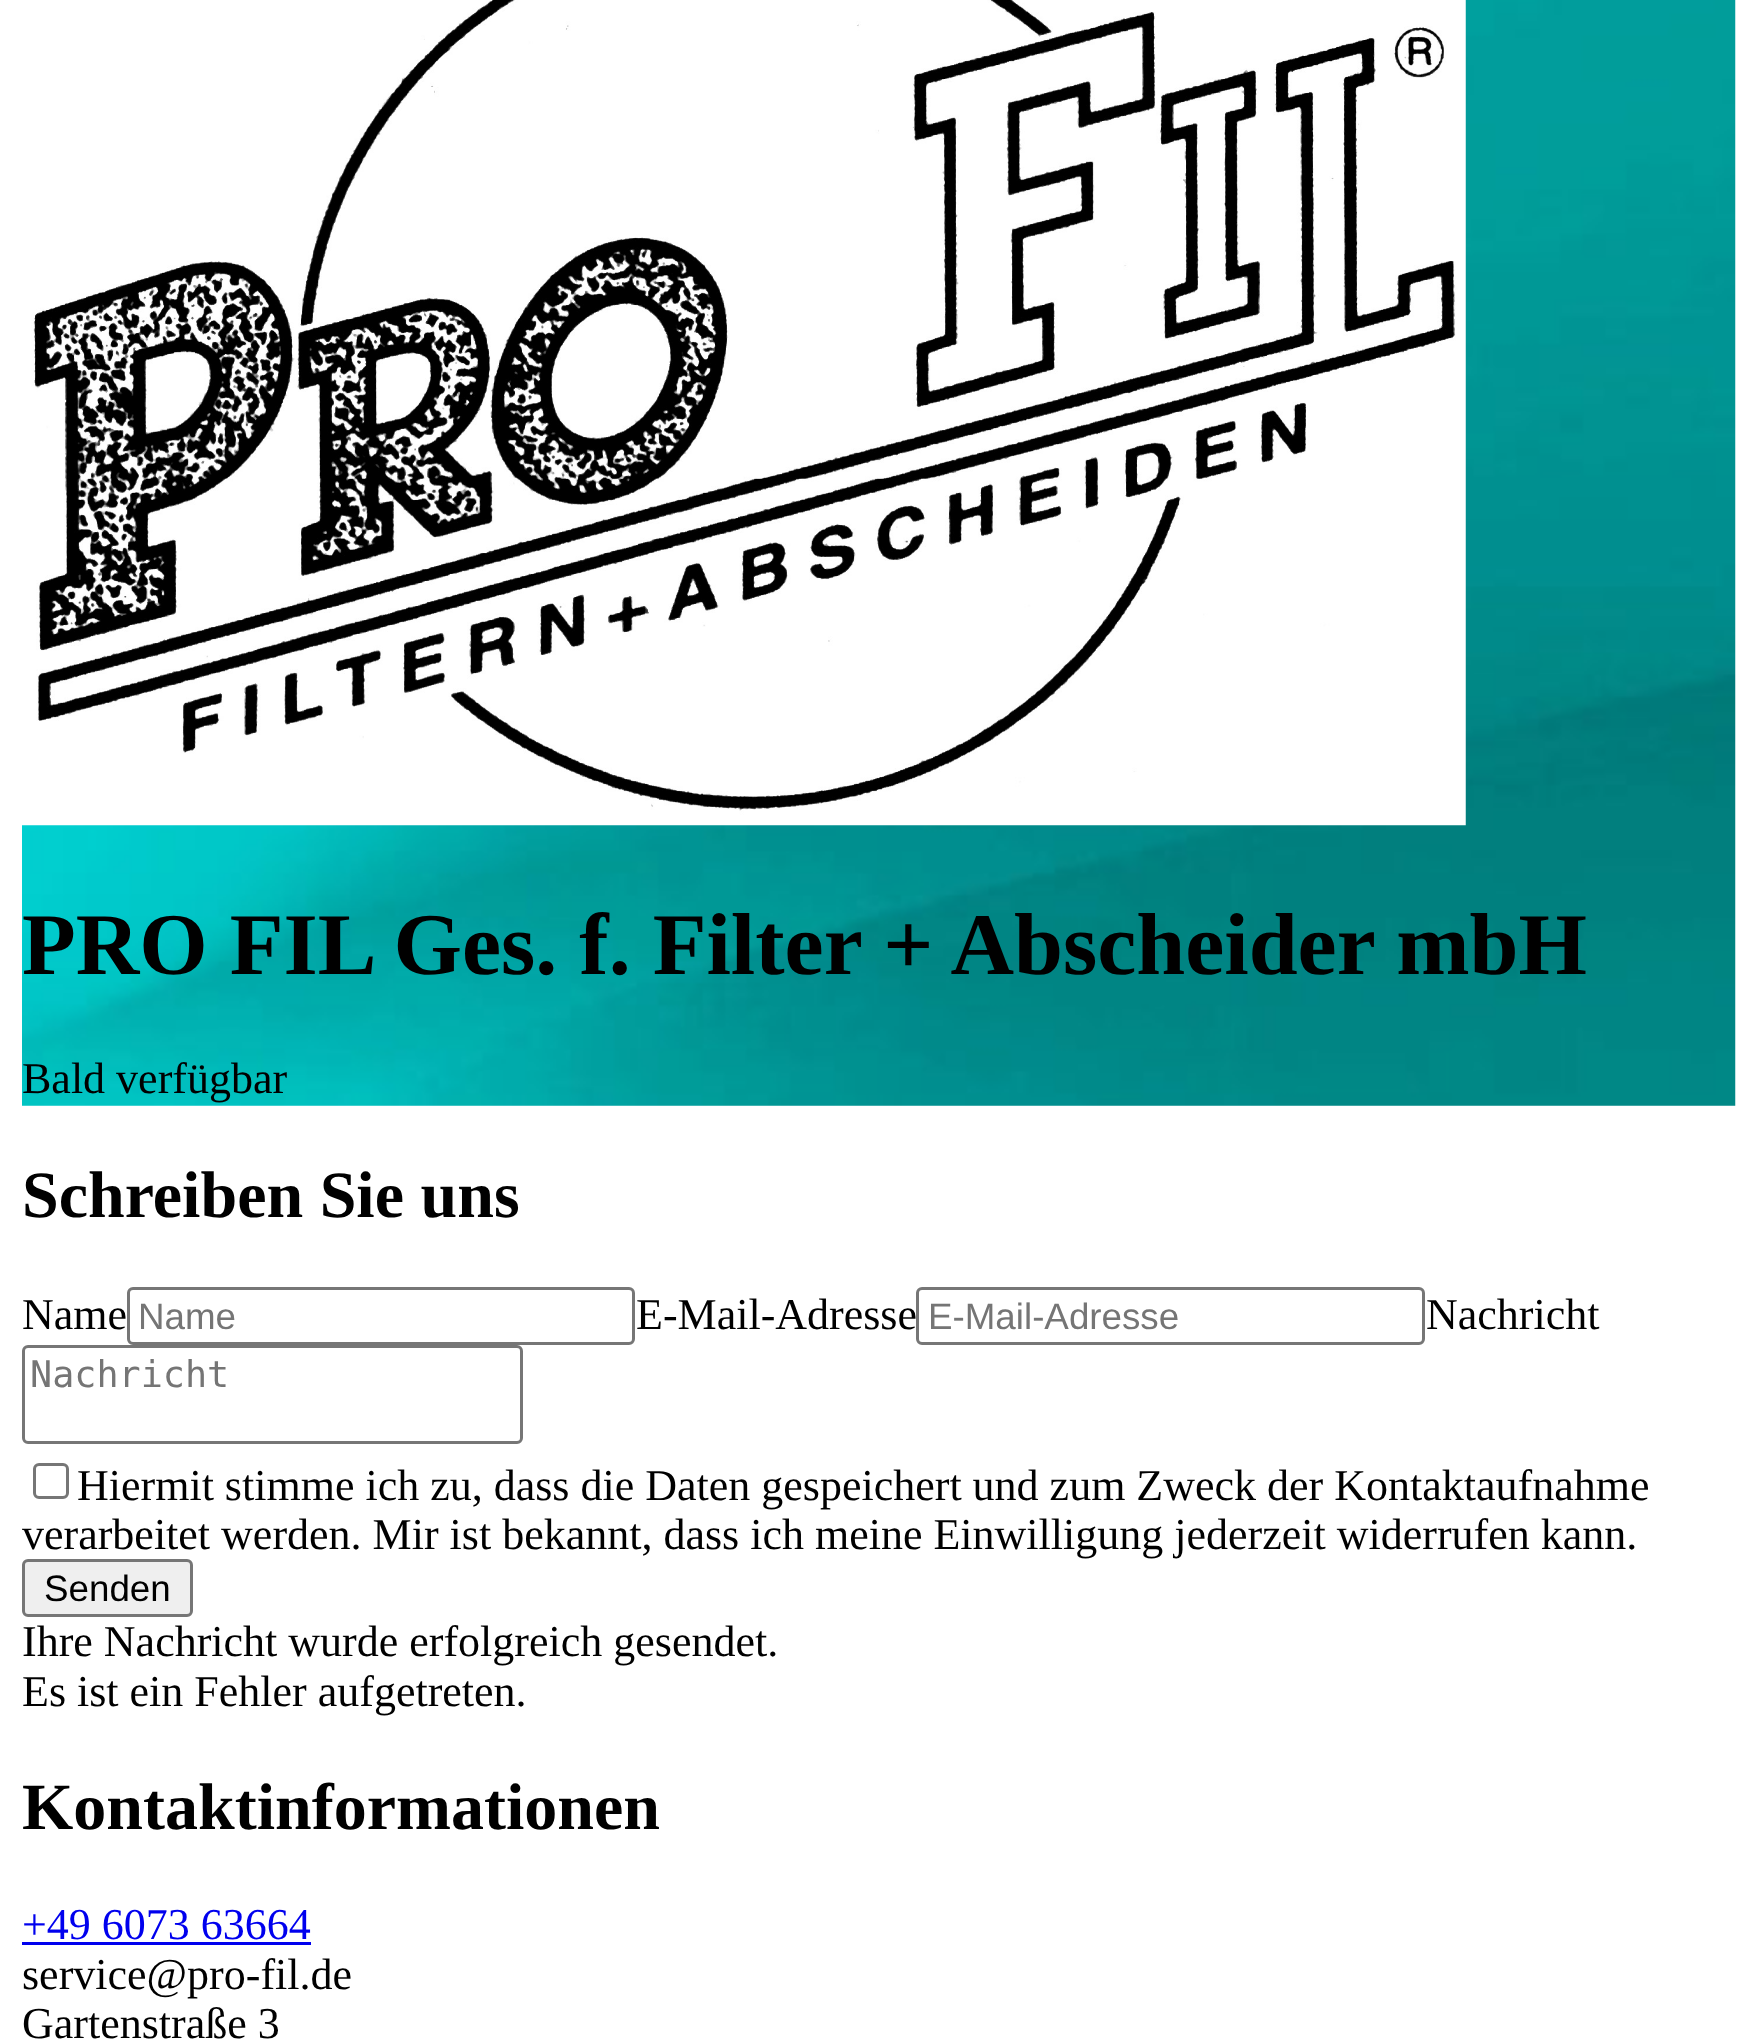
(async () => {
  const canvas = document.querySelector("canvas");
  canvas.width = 1757;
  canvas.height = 2039;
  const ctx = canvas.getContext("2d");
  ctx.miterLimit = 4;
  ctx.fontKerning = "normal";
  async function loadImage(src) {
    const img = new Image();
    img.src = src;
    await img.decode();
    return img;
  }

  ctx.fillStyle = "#ffffff";
  ctx.fillRect(0, 0, 1757, 2039);
  ctx.drawImage(await loadImage("img/1.png"), 22, 0, 1714, 1106);
  ctx.drawImage(await loadImage("img/2.png"), 22, 0, 1444, 826);
  ctx.beginPath();
  ctx.roundRect(128.5, 1288.5, 505, 55, 4.5);
  ctx.strokeStyle = "#767676";
  ctx.lineWidth = 3;
  ctx.stroke();
  ctx.beginPath();
  ctx.roundRect(917.5, 1288.5, 506, 55, 4.5);
  ctx.stroke();
  ctx.beginPath();
  ctx.roundRect(23.5, 1346.5, 498, 96, 4.5);
  ctx.stroke();
  ctx.beginPath();
  ctx.roundRect(34.5, 1464.5, 33, 33, 4.5);
  ctx.stroke();
  ctx.fillStyle = "#efefef";
  ctx.beginPath();
  ctx.roundRect(23.5, 1560.5, 168, 55, 4.5);
  ctx.fill();
  ctx.stroke();
  ctx.fillStyle = "#0000ee";
  ctx.fillRect(22, 1942, 289, 3);
  ctx.font = "bold 88px Liberation Serif";
  ctx.fillStyle = "#000000";
  ctx.fillText("PRO FIL Ges. f. Filter + Abscheider mbH", 22, 974);
  ctx.font = "44px Liberation Serif";
  ctx.fillText("Bald verfügbar", 22, 1093);
  ctx.font = "bold 66px Liberation Serif";
  ctx.fillText("Schreiben Sie uns", 22, 1217);
  ctx.font = "44px Liberation Serif";
  ctx.fillText("Name", 22, 1329);
  ctx.font = "36.75px Liberation Sans";
  ctx.fillStyle = "#757575";
  ctx.fillText("Name", 138, 1329);
  ctx.font = "44px Liberation Serif";
  ctx.fillStyle = "#000000";
  ctx.fillText("E-Mail-Adresse", 636, 1329);
  ctx.font = "36.75px Liberation Sans";
  ctx.fillStyle = "#757575";
  ctx.fillText("E-Mail-Adresse", 928, 1329);
  ctx.font = "44px Liberation Serif";
  ctx.fillStyle = "#000000";
  ctx.fillText("Nachricht", 1426, 1329);
  ctx.font = "36.75px DejaVu Sans Mono";
  ctx.fillStyle = "#757575";
  ctx.fillText("Nachricht", 30, 1387);
  ctx.font = "44px Liberation Serif";
  ctx.fillStyle = "#000000";
  ctx.fillText("Hiermit stimme ich zu, dass die Daten gespeichert und zum Zweck der Kontaktaufnahme", 77, 1500);
  ctx.fillText("verarbeitet werden. Mir ist bekannt, dass ich meine Einwilligung jederzeit widerrufen kann.", 22, 1549);
  ctx.font = "36.75px Liberation Sans";
  ctx.fillText("Senden", 44, 1601);
  ctx.font = "44px Liberation Serif";
  ctx.fillText("Ihre Nachricht wurde erfolgreich gesendet.", 22, 1656);
  ctx.fillText("Es ist ein Fehler aufgetreten.", 22, 1706);
  ctx.font = "bold 66px Liberation Serif";
  ctx.fillText("Kontaktinformationen", 22, 1829);
  ctx.font = "44px Liberation Serif";
  ctx.fillStyle = "#0000ee";
  ctx.fillText("+49 6073 63664", 22, 1939);
  ctx.fillStyle = "#000000";
  ctx.fillText("service@pro-fil.de", 22, 1989);
  ctx.fillText("Gartenstraße 3", 22, 2038);
})();
